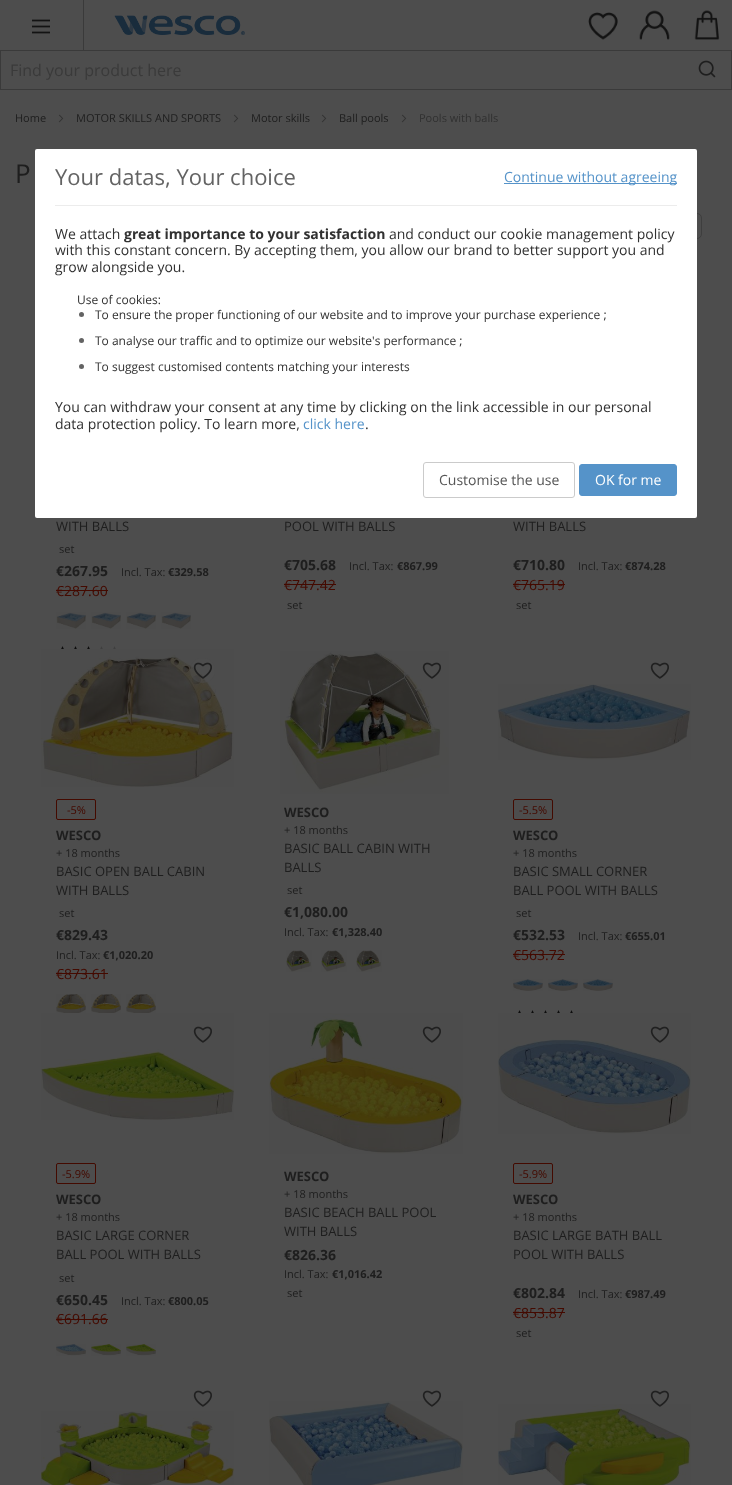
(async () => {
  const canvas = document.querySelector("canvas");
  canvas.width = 732;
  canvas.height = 1485;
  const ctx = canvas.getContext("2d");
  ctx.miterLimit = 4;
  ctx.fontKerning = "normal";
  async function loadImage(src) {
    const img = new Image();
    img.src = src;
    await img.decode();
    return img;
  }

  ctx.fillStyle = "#4d4d4d";
  ctx.fillRect(0, 0, 732, 1485);
  ctx.fillStyle = "#3a3a3a";
  ctx.fillRect(83, 0, 1, 50);
  ctx.drawImage(await loadImage("img/1.png"), 32, 19, 18, 15);
  ctx.drawImage(await loadImage("img/2.png"), 114, 15, 131, 20);
  ctx.drawImage(await loadImage("img/3.png"), 588, 12, 30, 28);
  ctx.drawImage(await loadImage("img/4.png"), 639, 10, 31, 30);
  ctx.drawImage(await loadImage("img/5.png"), 694, 10, 26, 30);
  ctx.strokeStyle = "#3a3a3a";
  ctx.strokeRect(0.5, 50.5, 731, 39);
  ctx.drawImage(await loadImage("img/6.png"), 698, 60, 18, 18);
  ctx.drawImage(await loadImage("img/7.png"), 58, 114, 6, 9);
  ctx.drawImage(await loadImage("img/7.png"), 233, 114, 6, 9);
  ctx.drawImage(await loadImage("img/7.png"), 321, 114, 6, 9);
  ctx.drawImage(await loadImage("img/7.png"), 401, 114, 6, 9);
  ctx.beginPath();
  ctx.roundRect(617.5, 213.5, 84, 25, 4.5);
  ctx.strokeStyle = "#3e3e3e";
  ctx.stroke();
  ctx.fillStyle = "#440a00";
  ctx.fillRect(56, 590, 52, 1);
  ctx.drawImage(await loadImage("img/8.png"), 56, 612, 30, 17);
  ctx.drawImage(await loadImage("img/9.png"), 91, 612, 30, 17);
  ctx.drawImage(await loadImage("img/8.png"), 126, 612, 30, 17);
  ctx.drawImage(await loadImage("img/8.png"), 161, 612, 30, 17);
  ctx.drawImage(await loadImage("img/10.png"), 61, 646, 3, 3);
  ctx.drawImage(await loadImage("img/10.png"), 74, 646, 3, 3);
  ctx.drawImage(await loadImage("img/10.png"), 87, 646, 3, 3);
  ctx.drawImage(await loadImage("img/10.png"), 100, 646, 3, 3);
  ctx.drawImage(await loadImage("img/10.png"), 113, 646, 3, 3);
  ctx.drawImage(await loadImage("img/11.png"), 61, 646, 3, 3);
  ctx.drawImage(await loadImage("img/11.png"), 74, 646, 3, 3);
  ctx.drawImage(await loadImage("img/11.png"), 87, 646, 3, 3);
  ctx.fillRect(284, 584, 52, 1);
  ctx.fillRect(513, 584, 52, 1);
  ctx.drawImage(await loadImage("img/12.png"), 41, 649, 193, 138);
  ctx.fillStyle = "rgba(77, 77, 77, 0.5)";
  ctx.beginPath();
  ctx.arc(202.5, 670.5, 12.5, 0, Math.PI * 2);
  ctx.fill();
  ctx.drawImage(await loadImage("img/13.png"), 193, 662, 19, 17);
  ctx.beginPath();
  ctx.roundRect(56.5, 799.5, 39, 20, 1.5);
  ctx.strokeStyle = "#440a00";
  ctx.stroke();
  ctx.fillStyle = "#440a00";
  ctx.fillRect(56, 973, 52, 1);
  ctx.drawImage(await loadImage("img/14.png"), 56, 994, 30, 19);
  ctx.drawImage(await loadImage("img/15.png"), 91, 994, 30, 19);
  ctx.drawImage(await loadImage("img/14.png"), 126, 994, 30, 19);
  ctx.drawImage(await loadImage("img/16.png"), 280, 651, 169, 143);
  ctx.drawImage(await loadImage("img/17.png"), 422, 662, 19, 17);
  ctx.drawImage(await loadImage("img/18.png"), 286, 950, 26, 22);
  ctx.drawImage(await loadImage("img/19.png"), 321, 950, 26, 22);
  ctx.drawImage(await loadImage("img/18.png"), 356, 950, 26, 22);
  ctx.drawImage(await loadImage("img/17.png"), 650, 662, 19, 17);
  ctx.drawImage(await loadImage("img/20.png"), 498, 684, 193, 76);
  ctx.beginPath();
  ctx.roundRect(513.5, 799.5, 39, 20, 1.5);
  ctx.stroke();
  ctx.fillRect(513, 954, 52, 1);
  ctx.drawImage(await loadImage("img/21.png"), 513, 979, 30, 12);
  ctx.drawImage(await loadImage("img/21.png"), 548, 979, 30, 12);
  ctx.drawImage(await loadImage("img/21.png"), 583, 979, 30, 12);
  ctx.drawImage(await loadImage("img/10.png"), 518, 1010, 3, 3);
  ctx.drawImage(await loadImage("img/10.png"), 531, 1010, 3, 3);
  ctx.drawImage(await loadImage("img/10.png"), 544, 1010, 3, 3);
  ctx.drawImage(await loadImage("img/10.png"), 557, 1010, 3, 3);
  ctx.drawImage(await loadImage("img/10.png"), 570, 1010, 3, 3);
  ctx.drawImage(await loadImage("img/11.png"), 518, 1010, 3, 3);
  ctx.drawImage(await loadImage("img/11.png"), 531, 1010, 3, 3);
  ctx.drawImage(await loadImage("img/11.png"), 544, 1010, 3, 3);
  ctx.drawImage(await loadImage("img/11.png"), 557, 1010, 3, 3);
  ctx.drawImage(await loadImage("img/11.png"), 570, 1010, 3, 3);
  ctx.drawImage(await loadImage("img/22.png"), 41, 1013, 193, 107);
  ctx.drawImage(await loadImage("img/17.png"), 193, 1026, 19, 17);
  ctx.beginPath();
  ctx.roundRect(56.5, 1163.5, 39, 20, 1.5);
  ctx.stroke();
  ctx.fillRect(56, 1319, 52, 1);
  ctx.drawImage(await loadImage("img/23.png"), 56, 1344, 30, 12);
  ctx.drawImage(await loadImage("img/24.png"), 91, 1344, 30, 12);
  ctx.drawImage(await loadImage("img/25.png"), 126, 1344, 30, 12);
  ctx.drawImage(await loadImage("img/26.png"), 269, 1013, 194, 141);
  ctx.drawImage(await loadImage("img/17.png"), 422, 1026, 19, 17);
  ctx.drawImage(await loadImage("img/27.png"), 498, 1013, 193, 121);
  ctx.drawImage(await loadImage("img/17.png"), 650, 1026, 19, 17);
  ctx.beginPath();
  ctx.roundRect(513.5, 1163.5, 39, 20, 1.5);
  ctx.stroke();
  ctx.fillRect(513, 1312, 52, 1);
  ctx.drawImage(await loadImage("img/17.png"), 193, 1390, 19, 17);
  ctx.drawImage(await loadImage("img/28.png"), 41, 1411, 193, 74);
  ctx.drawImage(await loadImage("img/29.png"), 269, 1401, 194, 84);
  ctx.drawImage(await loadImage("img/17.png"), 422, 1390, 19, 17);
  ctx.drawImage(await loadImage("img/30.png"), 498, 1404, 193, 81);
  ctx.drawImage(await loadImage("img/17.png"), 650, 1390, 19, 17);
  ctx.fillStyle = "#ffffff";
  ctx.beginPath();
  ctx.roundRect(35, 149, 662, 369, 2);
  ctx.fill();
  ctx.fillStyle = "#ececec";
  ctx.fillRect(55, 205, 622, 1);
  ctx.fillStyle = "#5593c9";
  ctx.fillRect(504, 183, 173, 1);
  ctx.fillStyle = "#636363";
  ctx.beginPath();
  ctx.arc(81.5, 314.5, 2.5, 0, Math.PI * 2);
  ctx.fill();
  ctx.beginPath();
  ctx.arc(81.5, 340.5, 2.5, 0, Math.PI * 2);
  ctx.fill();
  ctx.beginPath();
  ctx.arc(81.5, 366.5, 2.5, 0, Math.PI * 2);
  ctx.fill();
  ctx.beginPath();
  ctx.roundRect(423.5, 462.5, 151, 35, 2.5);
  ctx.strokeStyle = "#cbcbcb";
  ctx.stroke();
  ctx.fillStyle = "#5593c9";
  ctx.beginPath();
  ctx.roundRect(579.5, 464.5, 97, 31, 2.5);
  ctx.fill();
  ctx.strokeStyle = "#5593c9";
  ctx.stroke();
  ctx.font = "16px Open Sans";
  ctx.fillStyle = "#3a3a3a";
  ctx.fillText("Find your product here", 10, 76);
  ctx.font = "11px Open Sans";
  ctx.fillStyle = "#1e1e1e";
  for (const [text, x, y] of [
    ["Home", 15, 122],
    ["MOTOR SKILLS AND SPORTS", 76, 122],
    ["Motor skills", 251, 122],
    ["Ball pools", 339, 122],
  ]) {
    ctx.fillText(text, x, y);
  }
  ctx.fillStyle = "#313131";
  ctx.fillText("Pools with balls", 419, 122);
  ctx.font = "26px Open Sans";
  ctx.fillStyle = "#1e1e1e";
  ctx.fillText("P", 15, 183);
  ctx.font = "13px Open Sans";
  ctx.fillText("WITH BALLS", 56, 531);
  ctx.font = "11px Open Sans";
  ctx.fillText("set", 59, 553);
  ctx.font = "bold 14px Open Sans";
  ctx.fillText("€267.95", 56, 576);
  ctx.font = "11px Open Sans";
  ctx.fillText("Incl. Tax:", 121, 576);
  ctx.font = "bold 11px Open Sans";
  ctx.fillText("€329.58", 168, 576);
  ctx.font = "14px Open Sans";
  ctx.fillStyle = "#440a00";
  ctx.fillText("€287.60", 56, 596);
  ctx.font = "13px Open Sans";
  ctx.fillStyle = "#1e1e1e";
  ctx.fillText("POOL WITH BALLS", 284, 531);
  ctx.font = "bold 14px Open Sans";
  ctx.fillText("€705.68", 284, 570);
  ctx.font = "11px Open Sans";
  ctx.fillText("Incl. Tax:", 349, 570);
  ctx.font = "bold 11px Open Sans";
  ctx.fillText("€867.99", 397, 570);
  ctx.font = "14px Open Sans";
  ctx.fillStyle = "#440a00";
  ctx.fillText("€747.42", 284, 590);
  ctx.font = "11px Open Sans";
  ctx.fillStyle = "#1e1e1e";
  ctx.fillText("set", 287, 609);
  ctx.font = "13px Open Sans";
  ctx.fillText("WITH BALLS", 513, 531);
  ctx.font = "bold 14px Open Sans";
  ctx.fillText("€710.80", 513, 570);
  ctx.font = "11px Open Sans";
  ctx.fillText("Incl. Tax:", 578, 570);
  ctx.font = "bold 11px Open Sans";
  ctx.fillText("€874.28", 625, 570);
  ctx.font = "14px Open Sans";
  ctx.fillStyle = "#440a00";
  ctx.fillText("€765.19", 513, 590);
  ctx.font = "11px Open Sans";
  ctx.fillStyle = "#1e1e1e";
  ctx.fillText("set", 516, 609);
  ctx.fillStyle = "#440a00";
  ctx.fillText("-5%", 67, 814);
  ctx.font = "bold 13px Open Sans";
  ctx.fillStyle = "#1e1e1e";
  ctx.fillText("WESCO", 56, 840);
  ctx.font = "11px Open Sans";
  ctx.fillText("+ 18 months", 56, 857);
  ctx.font = "13px Open Sans";
  ctx.fillText("BASIC OPEN BALL CABIN", 56, 876);
  ctx.fillText("WITH BALLS", 56, 895);
  ctx.font = "11px Open Sans";
  ctx.fillText("set", 59, 917);
  ctx.font = "bold 14px Open Sans";
  ctx.fillText("€829.43", 56, 940);
  ctx.font = "11px Open Sans";
  ctx.fillText("Incl. Tax:", 56, 959);
  ctx.font = "bold 11px Open Sans";
  ctx.fillText("€1,020.20", 103, 959);
  ctx.font = "14px Open Sans";
  ctx.fillStyle = "#440a00";
  ctx.fillText("€873.61", 56, 979);
  ctx.font = "bold 13px Open Sans";
  ctx.fillStyle = "#1e1e1e";
  ctx.fillText("WESCO", 284, 817);
  ctx.font = "11px Open Sans";
  ctx.fillText("+ 18 months", 284, 834);
  ctx.font = "13px Open Sans";
  ctx.fillText("BASIC BALL CABIN WITH", 284, 853);
  ctx.fillText("BALLS", 284, 872);
  ctx.font = "11px Open Sans";
  ctx.fillText("set", 287, 894);
  ctx.font = "bold 14px Open Sans";
  ctx.fillText("€1,080.00", 284, 917);
  ctx.font = "11px Open Sans";
  ctx.fillText("Incl. Tax:", 284, 936);
  ctx.font = "bold 11px Open Sans";
  ctx.fillText("€1,328.40", 332, 936);
  ctx.font = "11px Open Sans";
  ctx.fillStyle = "#440a00";
  ctx.fillText("-5.5%", 519, 814);
  ctx.font = "bold 13px Open Sans";
  ctx.fillStyle = "#1e1e1e";
  ctx.fillText("WESCO", 513, 840);
  ctx.font = "11px Open Sans";
  ctx.fillText("+ 18 months", 513, 857);
  ctx.font = "13px Open Sans";
  ctx.fillText("BASIC SMALL CORNER", 513, 876);
  ctx.fillText("BALL POOL WITH BALLS", 513, 895);
  ctx.font = "11px Open Sans";
  ctx.fillText("set", 516, 917);
  ctx.font = "bold 14px Open Sans";
  ctx.fillText("€532.53", 513, 940);
  ctx.font = "11px Open Sans";
  ctx.fillText("Incl. Tax:", 578, 940);
  ctx.font = "bold 11px Open Sans";
  ctx.fillText("€655.01", 625, 940);
  ctx.font = "14px Open Sans";
  ctx.fillStyle = "#440a00";
  ctx.fillText("€563.72", 513, 960);
  ctx.font = "11px Open Sans";
  ctx.fillText("-5.9%", 62, 1178);
  ctx.font = "bold 13px Open Sans";
  ctx.fillStyle = "#1e1e1e";
  ctx.fillText("WESCO", 56, 1204);
  ctx.font = "11px Open Sans";
  ctx.fillText("+ 18 months", 56, 1221);
  ctx.font = "13px Open Sans";
  ctx.fillText("BASIC LARGE CORNER", 56, 1240);
  ctx.fillText("BALL POOL WITH BALLS", 56, 1259);
  ctx.font = "11px Open Sans";
  ctx.fillText("set", 59, 1282);
  ctx.font = "bold 14px Open Sans";
  ctx.fillText("€650.45", 56, 1305);
  ctx.font = "11px Open Sans";
  ctx.fillText("Incl. Tax:", 121, 1305);
  ctx.font = "bold 11px Open Sans";
  ctx.fillText("€800.05", 168, 1305);
  ctx.font = "14px Open Sans";
  ctx.fillStyle = "#440a00";
  ctx.fillText("€691.66", 56, 1324);
  ctx.font = "bold 13px Open Sans";
  ctx.fillStyle = "#1e1e1e";
  ctx.fillText("WESCO", 284, 1181);
  ctx.font = "11px Open Sans";
  ctx.fillText("+ 18 months", 284, 1198);
  ctx.font = "13px Open Sans";
  ctx.fillText("BASIC BEACH BALL POOL", 284, 1217);
  ctx.fillText("WITH BALLS", 284, 1236);
  ctx.font = "bold 14px Open Sans";
  ctx.fillText("€826.36", 284, 1260);
  ctx.font = "11px Open Sans";
  ctx.fillText("Incl. Tax:", 284, 1278);
  ctx.font = "bold 11px Open Sans";
  ctx.fillText("€1,016.42", 332, 1278);
  ctx.font = "11px Open Sans";
  ctx.fillText("set", 287, 1297);
  ctx.fillStyle = "#440a00";
  ctx.fillText("-5.9%", 519, 1178);
  ctx.font = "bold 13px Open Sans";
  ctx.fillStyle = "#1e1e1e";
  ctx.fillText("WESCO", 513, 1204);
  ctx.font = "11px Open Sans";
  ctx.fillText("+ 18 months", 513, 1221);
  ctx.font = "13px Open Sans";
  ctx.fillText("BASIC LARGE BATH BALL", 513, 1240);
  ctx.fillText("POOL WITH BALLS", 513, 1259);
  ctx.font = "bold 14px Open Sans";
  ctx.fillText("€802.84", 513, 1298);
  ctx.font = "11px Open Sans";
  ctx.fillText("Incl. Tax:", 578, 1298);
  ctx.font = "bold 11px Open Sans";
  ctx.fillText("€987.49", 625, 1298);
  ctx.font = "14px Open Sans";
  ctx.fillStyle = "#440a00";
  ctx.fillText("€853.87", 513, 1318);
  ctx.font = "11px Open Sans";
  ctx.fillStyle = "#1e1e1e";
  ctx.fillText("set", 516, 1337);
  ctx.font = "22px Open Sans";
  ctx.fillStyle = "#636363";
  ctx.fillText("Your datas, Your choice", 55, 185);
  ctx.font = "14px Open Sans";
  ctx.fillStyle = "#5593c9";
  ctx.fillText("Continue without agreeing", 504, 182);
  ctx.fillStyle = "#313131";
  ctx.fillText("We attach", 55, 239);
  ctx.font = "bold 14px Open Sans";
  ctx.fillText("great importance to your satisfaction", 124, 239);
  ctx.font = "14px Open Sans";
  for (const [text, x, y] of [
    ["and conduct our cookie management policy", 389, 239],
    ["with this constant concern. By accepting them, you allow our brand to better support you and", 55, 255],
    ["grow alongside you.", 55, 272],
  ]) {
    ctx.fillText(text, x, y);
  }
  ctx.font = "12px Open Sans";
  for (const [text, x, y] of [
    ["Use of cookies:", 77, 304],
    ["To ensure the proper functioning of our website and to improve your purchase experience ;", 95, 319],
    ["To analyse our traffic and to optimize our website's performance ;", 95, 345],
    ["To suggest customised contents matching your interests", 95, 371],
  ]) {
    ctx.fillText(text, x, y);
  }
  ctx.font = "14px Open Sans";
  ctx.fillText("You can withdraw your consent at any time by clicking on the link accessible in our personal", 55, 412);
  ctx.fillText("data protection policy. To learn more,", 55, 429);
  ctx.fillStyle = "#5593c9";
  ctx.fillText("click here", 303, 429);
  ctx.fillStyle = "#313131";
  ctx.fillText(".", 365, 429);
  ctx.fillStyle = "#555555";
  ctx.fillText("Customise the use", 439, 485);
  ctx.fillStyle = "#ffffff";
  ctx.fillText("OK for me", 595, 485);
})();
